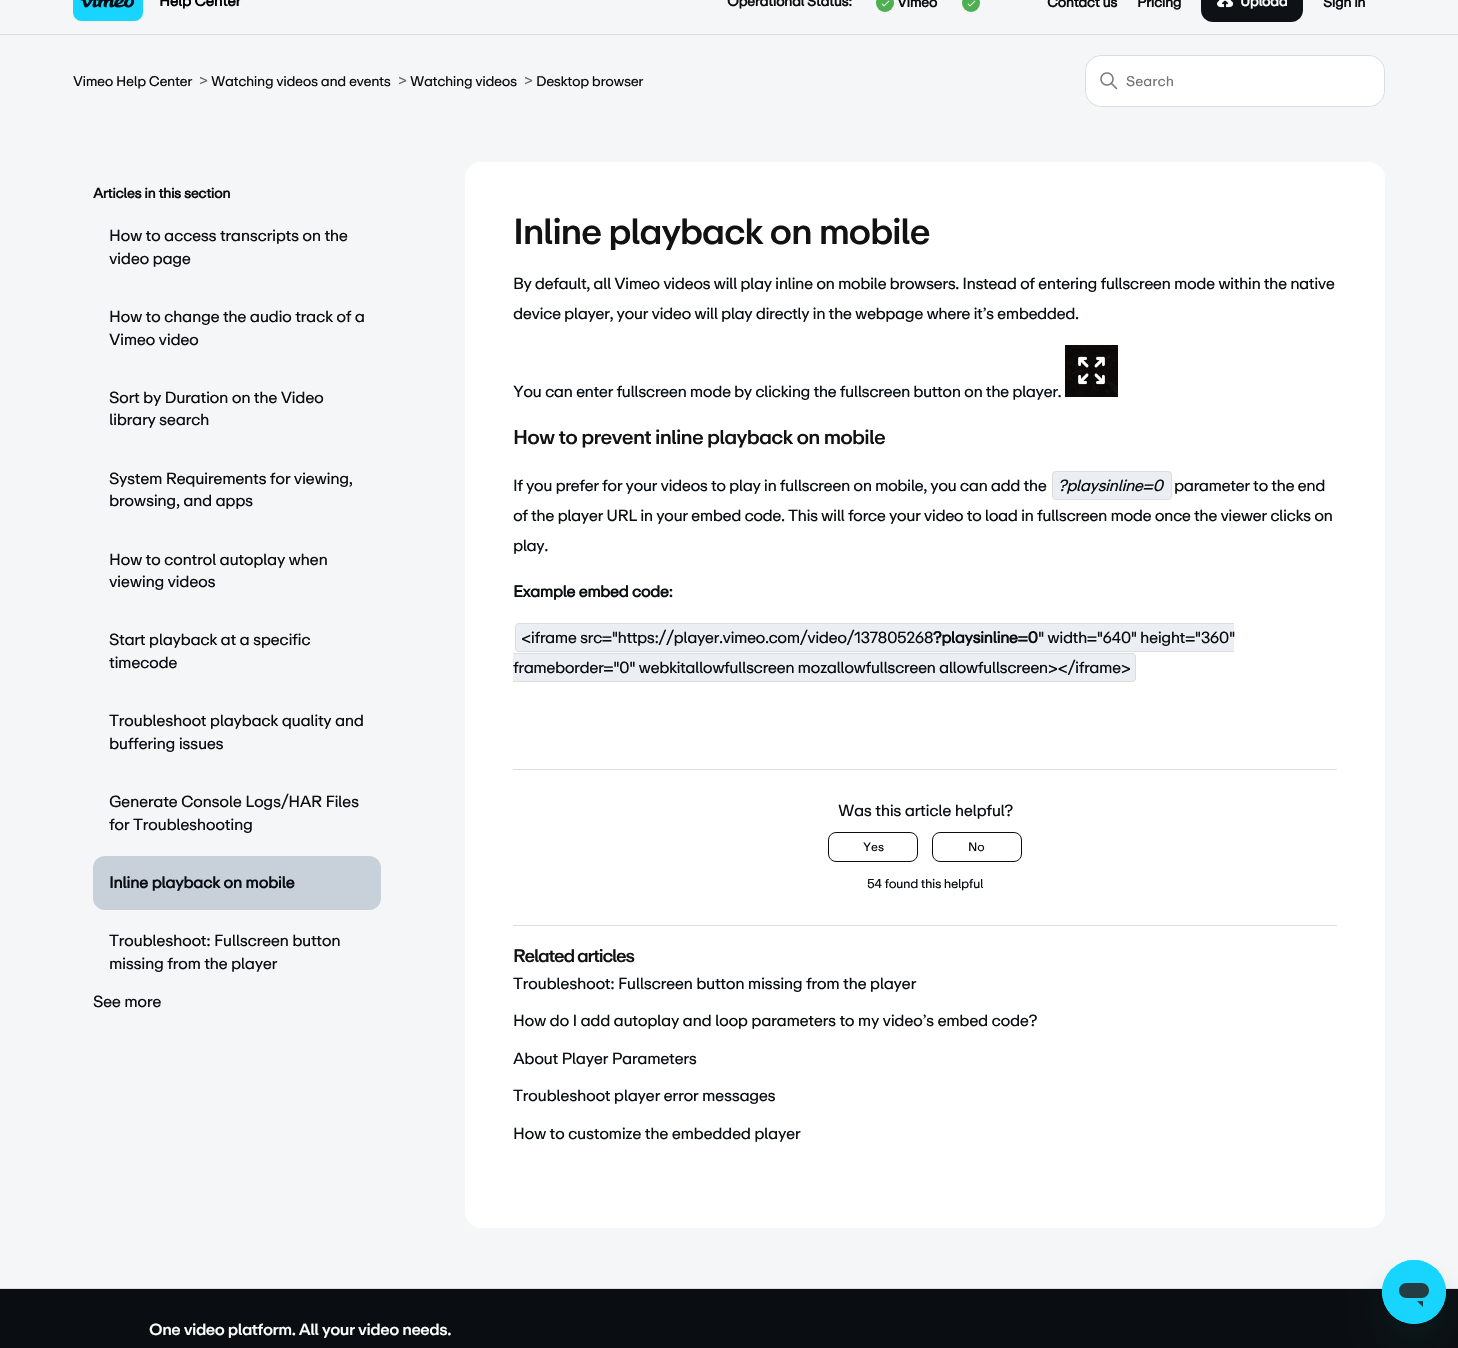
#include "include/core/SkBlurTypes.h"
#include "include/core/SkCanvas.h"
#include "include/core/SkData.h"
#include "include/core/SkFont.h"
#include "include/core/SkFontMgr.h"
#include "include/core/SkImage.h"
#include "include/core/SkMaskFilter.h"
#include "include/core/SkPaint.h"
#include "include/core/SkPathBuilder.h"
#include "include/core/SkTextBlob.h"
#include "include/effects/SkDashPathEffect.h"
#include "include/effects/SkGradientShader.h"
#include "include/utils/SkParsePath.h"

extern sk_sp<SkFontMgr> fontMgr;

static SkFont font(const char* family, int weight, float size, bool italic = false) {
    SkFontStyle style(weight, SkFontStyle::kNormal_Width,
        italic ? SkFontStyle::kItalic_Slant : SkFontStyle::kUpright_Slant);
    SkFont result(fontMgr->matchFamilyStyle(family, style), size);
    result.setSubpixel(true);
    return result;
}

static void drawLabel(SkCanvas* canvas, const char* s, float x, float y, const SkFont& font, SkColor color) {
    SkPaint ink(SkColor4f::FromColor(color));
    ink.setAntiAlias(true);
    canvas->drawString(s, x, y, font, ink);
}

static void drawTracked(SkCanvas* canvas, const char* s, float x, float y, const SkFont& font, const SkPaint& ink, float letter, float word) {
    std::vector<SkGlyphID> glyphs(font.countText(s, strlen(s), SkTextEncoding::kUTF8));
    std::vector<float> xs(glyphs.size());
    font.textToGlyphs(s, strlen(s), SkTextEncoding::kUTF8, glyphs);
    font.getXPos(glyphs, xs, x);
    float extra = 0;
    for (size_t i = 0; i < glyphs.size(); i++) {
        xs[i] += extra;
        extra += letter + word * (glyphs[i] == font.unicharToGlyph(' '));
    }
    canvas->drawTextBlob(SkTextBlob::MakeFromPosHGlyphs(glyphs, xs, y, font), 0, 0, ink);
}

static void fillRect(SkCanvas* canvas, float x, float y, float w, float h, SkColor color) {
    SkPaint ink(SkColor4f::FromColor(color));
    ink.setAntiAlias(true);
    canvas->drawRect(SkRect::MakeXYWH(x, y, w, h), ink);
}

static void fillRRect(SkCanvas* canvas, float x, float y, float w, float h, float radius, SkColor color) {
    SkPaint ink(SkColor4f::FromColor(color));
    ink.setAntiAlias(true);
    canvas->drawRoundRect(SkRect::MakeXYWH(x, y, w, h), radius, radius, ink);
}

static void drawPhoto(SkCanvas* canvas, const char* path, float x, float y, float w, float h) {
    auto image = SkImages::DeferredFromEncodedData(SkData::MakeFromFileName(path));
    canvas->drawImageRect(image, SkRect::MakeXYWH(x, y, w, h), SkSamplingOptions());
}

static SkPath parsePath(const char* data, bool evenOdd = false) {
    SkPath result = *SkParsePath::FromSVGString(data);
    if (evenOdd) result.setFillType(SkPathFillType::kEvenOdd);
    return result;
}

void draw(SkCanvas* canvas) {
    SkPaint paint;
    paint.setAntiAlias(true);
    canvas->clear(0xFFF4F6F8);
    drawPhoto(canvas, "assets/img1.png", 73, 0, 70, 21);
    SkFont font1 = font("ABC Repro", 700, 15);
    paint.setColor(0xFF000000);
    drawTracked(canvas, "Help Center", 159, 6, font1, paint, -0.42f, 0);
    SkFont font2 = font("ABC Repro", 700, 14);
    paint.setColor(0xFF0A0E12);
    drawTracked(canvas, "Operational Status:", 727, 6, font2, paint, -0.42f, 0);
    paint.setColor(0xFF4CAF50);
    canvas->drawCircle(885, 3, 9, paint);
    drawPhoto(canvas, "assets/img2.png", 881, 0, 9, 7);
    paint.setColor(0xFF0A0E12);
    drawTracked(canvas, "Vimeo", 897, 7, font2, paint, -0.42f, 0);
    paint.setColor(0xFF4CAF50);
    canvas->drawCircle(971, 3, 9, paint);
    drawPhoto(canvas, "assets/img2.png", 967, 0, 9, 7);
    paint.setColor(0xFF0A0E12);
    drawTracked(canvas, "Contact us", 1047, 7, font2, paint, -0.42f, 0);
    drawTracked(canvas, "Pricing", 1137, 7, font2, paint, -0.42f, 0);
    fillRRect(canvas, 1201, -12, 102, 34, 12, 0xFF0E1216);
    drawPhoto(canvas, "assets/img3.png", 1217, 0, 17, 8);
    paint.setColor(0xFFFFFFFF);
    drawTracked(canvas, "Upload", 1240, 6, font2, paint, -0.42f, 0);
    paint.setColor(0xFF0A0E12);
    drawTracked(canvas, "Sign in", 1323, 7, font2, paint, -0.42f, 0);
    fillRect(canvas, 0, 34, 1458, 1, 0xFFDDDDDD);
    SkFont font3 = font("ABC Repro", 400, 14);
    drawTracked(canvas, "Vimeo Help Center", 73, 86, font3, paint, -0.42f, 0);
    paint.setColor(0xFF626C76);
    drawTracked(canvas, ">", 199, 84, font3, paint, -0.42f, 0);
    paint.setColor(0xFF0A0E12);
    drawTracked(canvas, "Watching videos and events", 211, 86, font3, paint, -0.42f, 0);
    paint.setColor(0xFF626C76);
    drawTracked(canvas, ">", 398, 84, font3, paint, -0.42f, 0);
    paint.setColor(0xFF0A0E12);
    drawTracked(canvas, "Watching videos", 410, 86, font3, paint, -0.42f, 0);
    paint.setColor(0xFF626C76);
    drawTracked(canvas, ">", 524, 84, font3, paint, -0.42f, 0);
    paint.setColor(0xFF0A0E12);
    drawTracked(canvas, "Desktop browser", 536, 86, font3, paint, -0.42f, 0);
    paint.setStroke(true);
    paint.setStrokeWidth(1);
    paint.setColor(0xFFDDDDDD);
    canvas->drawRoundRect(SkRect::MakeXYWH(1085.5f, 55.5f, 299, 51), 15.5f, 15.5f, paint);
    fillRRect(canvas, 1086, 56, 298, 50, 16, 0xFFFFFFFF);
    drawPhoto(canvas, "assets/img4.png", 1100, 72, 18, 18);
    drawLabel(canvas, "Search", 1126, 86, font3, 0xFF757575);
    paint.setStroke(false);
    paint.setColor(0xFF0A0E12);
    drawTracked(canvas, "Articles in this section", 93, 198, font2, paint, -0.42f, 0);
    SkFont font4 = font("ABC Repro", 400, 16);
    drawTracked(canvas, "How to access transcripts on the", 109, 241, font4, paint, -0.42f, 0);
    drawTracked(canvas, "video page", 109, 264, font4, paint, -0.42f, 0);
    drawTracked(canvas, "How to change the audio track of a", 109, 322, font4, paint, -0.42f, 0);
    drawTracked(canvas, "Vimeo video", 109, 345, font4, paint, -0.42f, 0);
    drawTracked(canvas, "Sort by Duration on the Video", 109, 403, font4, paint, -0.42f, 0);
    drawTracked(canvas, "library search", 109, 425, font4, paint, -0.42f, 0);
    drawTracked(canvas, "System Requirements for viewing,", 109, 484, font4, paint, -0.42f, 0);
    drawTracked(canvas, "browsing, and apps", 109, 506, font4, paint, -0.42f, 0);
    drawTracked(canvas, "How to control autoplay when", 109, 565, font4, paint, -0.42f, 0);
    drawTracked(canvas, "viewing videos", 109, 587, font4, paint, -0.42f, 0);
    drawTracked(canvas, "Start playback at a specific", 109, 645, font4, paint, -0.42f, 0);
    drawTracked(canvas, "timecode", 109, 668, font4, paint, -0.42f, 0);
    drawTracked(canvas, "Troubleshoot playback quality and", 109, 726, font4, paint, -0.42f, 0);
    drawTracked(canvas, "buffering issues", 109, 749, font4, paint, -0.42f, 0);
    drawTracked(canvas, "Generate Console Logs/HAR Files", 109, 807, font4, paint, -0.42f, 0);
    drawTracked(canvas, "for Troubleshooting", 109, 830, font4, paint, -0.42f, 0);
    fillRRect(canvas, 93, 856, 288, 54, 12, 0xFFC8D0D9);
    SkFont font5 = font("ABC Repro", 700, 16);
    drawTracked(canvas, "Inline playback on mobile", 109, 888, font5, paint, -0.42f, 0);
    drawTracked(canvas, "Troubleshoot: Fullscreen button", 109, 946, font4, paint, -0.42f, 0);
    drawTracked(canvas, "missing from the player", 109, 969, font4, paint, -0.42f, 0);
    drawTracked(canvas, "See more", 93, 1007, font4, paint, -0.42f, 0);
    fillRRect(canvas, 465, 162, 920, 1066, 16, 0xFFFFFFFF);
    SkFont font6 = font("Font", 500, 36);
    paint.setColor(0xFF121212);
    drawTracked(canvas, "Inline playback on mobile", 513, 244, font6, paint, -1.4f, 0);
    paint.setColor(0xFF0A0E12);
    drawTracked(canvas, "By default, all Vimeo videos will play inline on mobile browsers. Instead of entering fullscreen mode within the native", 513, 289, font4, paint, -0.54f, 0);
    drawTracked(canvas, "device player, your video will play directly in the webpage where it’s embedded.", 513, 319, font4, paint, -0.54f, 0);
    drawTracked(canvas, "You can enter fullscreen mode by clicking the fullscreen button on the player.", 513, 397, font4, paint, -0.54f, 0);
    drawPhoto(canvas, "assets/img5.png", 1065, 345, 53, 52);
    SkFont font7 = font("Font", 500, 20);
    paint.setColor(0xFF121212);
    drawTracked(canvas, "How to prevent inline playback on mobile", 513, 444, font7, paint, -0.8f, 0);
    paint.setColor(0xFF0A0E12);
    drawTracked(canvas, "If you prefer for your videos to play in fullscreen on mobile, you can add the", 513, 491, font4, paint, -0.54f, 0);
    paint.setColor(0xFFEBEEF2);
    canvas->drawRoundRect(SkRect::MakeXYWH(1052.5f, 471.5f, 119, 28), 3.5f, 3.5f, paint);
    paint.setStroke(true);
    paint.setColor(0xFFDDDDDD);
    canvas->drawRoundRect(SkRect::MakeXYWH(1052.5f, 471.5f, 119, 28), 3.5f, 3.5f, paint);
    SkFont font8 = font("ABC Repro", 400, 16, true);
    paint.setStroke(false);
    paint.setColor(0xFF0A0E12);
    drawTracked(canvas, "?playsinline=0", 1058, 491, font8, paint, -0.54f, 0);
    drawTracked(canvas, "parameter to the end", 1174, 491, font4, paint, -0.54f, 0);
    drawTracked(canvas, "of the player URL in your embed code. This will force your video to load in fullscreen mode once the viewer clicks on", 513, 521, font4, paint, -0.54f, 0);
    drawTracked(canvas, "play.", 513, 551, font4, paint, -0.54f, 0);
    drawTracked(canvas, "Example embed code:", 513, 597, font5, paint, -0.54f, 0);
    paint.setColor(0xFFEBEEF2);
    canvas->drawPath(parsePath("M519 623H933V652H519C517 652 515 650 515 648V627C515 625 517 623 519 623Z"), paint);
    paint.setColor(0xFFDDDDDD);
    canvas->drawPath(parsePath("M519 623H933V652H519C517 652 515 650 515 648V627C515 625 517 623 519 623ZM519 624H933V651H519C517 651 516 650 516 648V627C516 625 517 624 519 624Z", true), paint);
    paint.setColor(0xFF0A0E12);
    drawTracked(canvas, "<iframe src=\"https://player.vimeo.com/video/137805268", 521, 643, font4, paint, -0.54f, 0);
    fillRect(canvas, 933, 624, 301, 27, 0xFFEBEEF2);
    fillRect(canvas, 933, 623, 301, 1, 0xFFDDDDDD);
    drawTracked(canvas, "?playsinline=0", 933, 643, font5, paint, -0.54f, 0);
    fillRect(canvas, 933, 651, 301, 1, 0xFFDDDDDD);
    drawTracked(canvas, "\" width=\"640\" height=\"360\"", 1038, 643, font4, paint, -0.54f, 0);
    paint.setColor(0xFFEBEEF2);
    canvas->drawPath(parsePath("M513 653H1132C1134 653 1136 655 1136 657V678C1136 680 1134 682 1132 682H513Z"), paint);
    paint.setColor(0xFFDDDDDD);
    canvas->drawPath(parsePath("M513 653H1132C1134 653 1136 655 1136 657V678C1136 680 1134 682 1132 682H513ZM513 654H1132C1134 654 1135 655 1135 657V678C1135 680 1134 681 1132 681H513Z", true), paint);
    paint.setColor(0xFF0A0E12);
    drawTracked(canvas, "frameborder=\"0\" webkitallowfullscreen mozallowfullscreen allowfullscreen></iframe>", 513, 673, font4, paint, -0.54f, 0);
    fillRect(canvas, 513, 769, 824, 1, 0xFFDDDDDD);
    drawTracked(canvas, "Was this article helpful?", 838, 816, font4, paint, -0.42f, 0);
    paint.setStroke(true);
    canvas->drawRoundRect(SkRect::MakeXYWH(828.5f, 832.5f, 89, 29), 7.5f, 7.5f, paint);
    SkFont font9 = font("ABC Repro", 400, 12);
    drawLabel(canvas, "Yes", 863, 851, font9, 0xFF0A0E12);
    canvas->drawRoundRect(SkRect::MakeXYWH(932.5f, 832.5f, 89, 29), 7.5f, 7.5f, paint);
    drawLabel(canvas, "No", 968, 851, font9, 0xFF0A0E12);
    SkFont font10 = font("ABC Repro", 400, 12.75f);
    paint.setStroke(false);
    drawTracked(canvas, "54 found this helpful", 867, 888, font10, paint, -0.42f, 0);
    fillRect(canvas, 513, 925, 824, 1, 0xFFDDDDDD);
    SkFont font11 = font("Font", 500, 18);
    paint.setColor(0xFF121212);
    drawTracked(canvas, "Related articles", 513, 962, font11, paint, -1.25f, 0);
    paint.setColor(0xFF0A0E12);
    drawTracked(canvas, "Troubleshoot: Fullscreen button missing from the player", 513, 989, font4, paint, -0.42f, 0);
    drawTracked(canvas, "How do I add autoplay and loop parameters to my video’s embed code?", 513, 1026, font4, paint, -0.42f, 0);
    drawTracked(canvas, "About Player Parameters", 513, 1064, font4, paint, -0.42f, 0);
    drawTracked(canvas, "Troubleshoot player error messages", 513, 1101, font4, paint, -0.42f, 0);
    drawTracked(canvas, "How to customize the embedded player", 513, 1139, font4, paint, -0.42f, 0);
    fillRect(canvas, 0, 1289, 1458, 59, 0xFF0A0E12);
    fillRect(canvas, 0, 1288, 1458, 1, 0xFFDDDDDD);
    SkFont font12 = font("Font", 500, 16);
    paint.setColor(0xFFFFFFFF);
    drawTracked(canvas, "One video platform. All your video needs.", 149, 1335, font12, paint, -0.5f, 0);
    paint.setColor(0x2617494D);
    paint.setMaskFilter(SkMaskFilter::MakeBlur(kNormal_SkBlurStyle, 15));
    canvas->drawRoundRect(SkRect::MakeXYWH(1382, 1280, 64, 64), 32, 32, paint);
    paint.setMaskFilter(nullptr);
    drawPhoto(canvas, "assets/img6.png", 1382, 1260, 64, 64);
}
